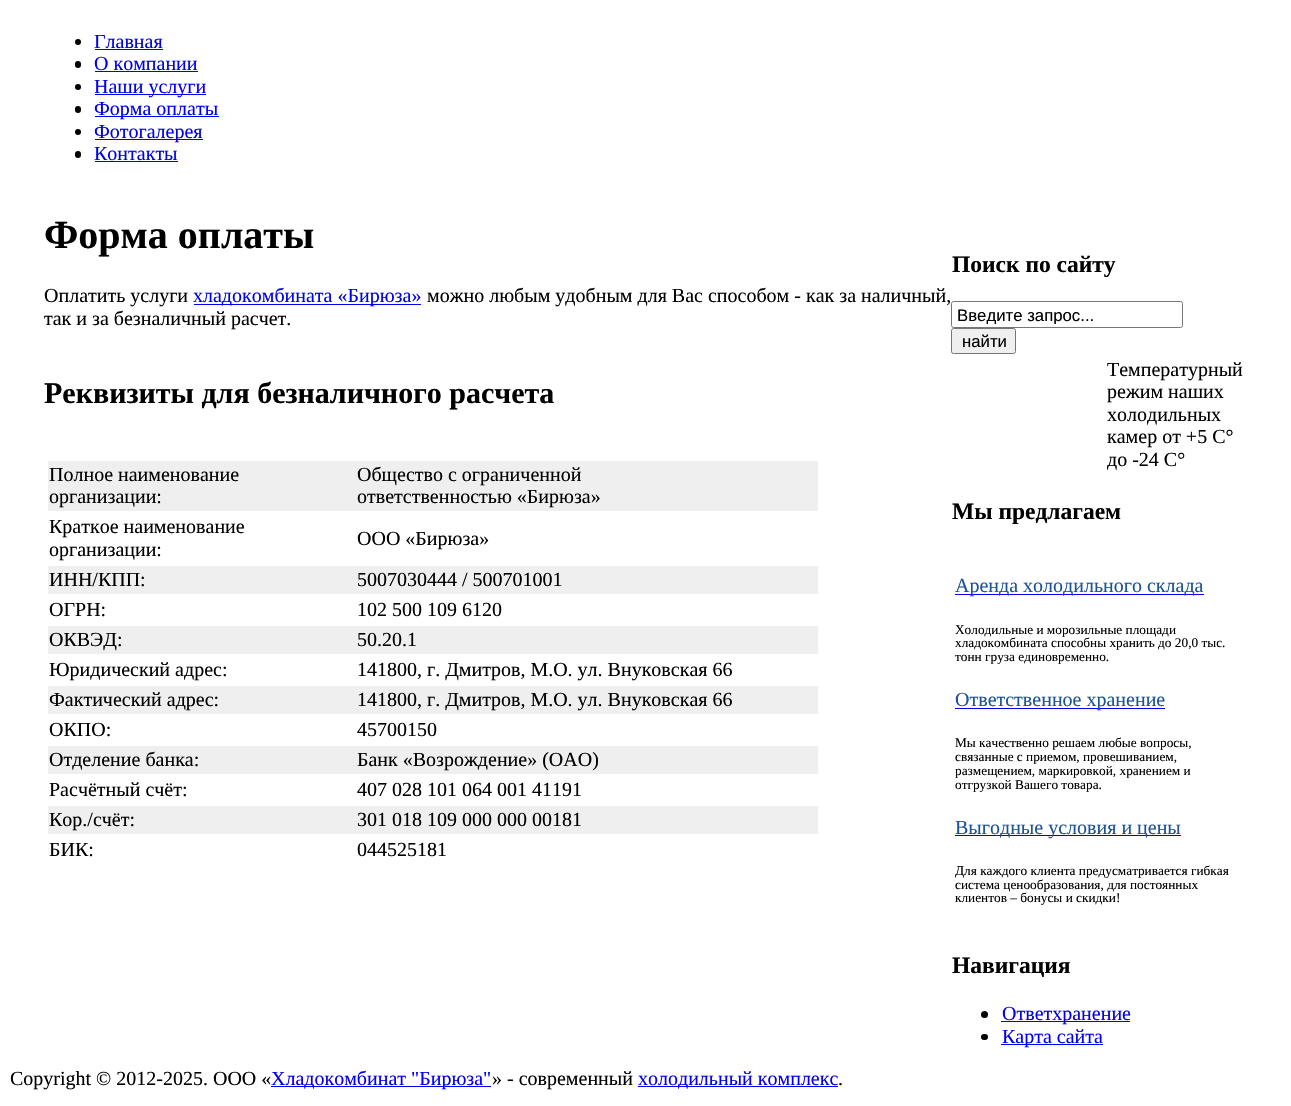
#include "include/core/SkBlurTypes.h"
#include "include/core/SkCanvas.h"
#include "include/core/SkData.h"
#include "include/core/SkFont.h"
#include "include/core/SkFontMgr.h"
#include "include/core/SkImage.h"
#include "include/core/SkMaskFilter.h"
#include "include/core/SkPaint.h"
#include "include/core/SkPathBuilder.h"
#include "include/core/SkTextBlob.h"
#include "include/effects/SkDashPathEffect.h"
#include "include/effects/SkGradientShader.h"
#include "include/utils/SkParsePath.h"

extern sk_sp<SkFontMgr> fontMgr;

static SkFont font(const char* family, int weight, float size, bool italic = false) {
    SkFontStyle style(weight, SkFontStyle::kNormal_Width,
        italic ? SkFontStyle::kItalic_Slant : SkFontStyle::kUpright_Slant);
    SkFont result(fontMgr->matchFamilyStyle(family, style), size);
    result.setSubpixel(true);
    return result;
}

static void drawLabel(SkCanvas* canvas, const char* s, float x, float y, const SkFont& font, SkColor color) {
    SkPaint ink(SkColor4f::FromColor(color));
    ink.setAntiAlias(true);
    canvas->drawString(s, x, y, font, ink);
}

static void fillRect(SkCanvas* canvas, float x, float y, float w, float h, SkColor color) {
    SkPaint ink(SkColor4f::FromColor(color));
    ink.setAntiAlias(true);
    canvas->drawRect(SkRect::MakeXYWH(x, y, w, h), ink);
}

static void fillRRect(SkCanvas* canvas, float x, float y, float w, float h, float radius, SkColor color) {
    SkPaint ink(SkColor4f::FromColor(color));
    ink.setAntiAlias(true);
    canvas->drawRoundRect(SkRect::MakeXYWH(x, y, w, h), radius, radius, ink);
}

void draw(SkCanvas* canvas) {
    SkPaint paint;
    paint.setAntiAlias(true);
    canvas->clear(0xFFFFFFFF);
    paint.setColor(0xFF000000);
    canvas->drawCircle(78, 42, 3, paint);
    SkFont font1 = font("Liberation Serif", 400, 20);
    drawLabel(canvas, "Главная", 94, 48, font1, 0xFF0000EE);
    fillRect(canvas, 95, 49, 68, 1, 0xFF0000EE);
    fillRRect(canvas, 75, 61, 6, 7, 3, 0xFF000000);
    drawLabel(canvas, "О компании", 94, 70, font1, 0xFF0000EE);
    fillRect(canvas, 95, 71, 103, 1, 0xFF0000EE);
    canvas->drawCircle(78, 87, 3, paint);
    fillRect(canvas, 95, 94, 111, 1, 0xFF0000EE);
    drawLabel(canvas, "Наши услуги", 94, 93, font1, 0xFF0000EE);
    fillRRect(canvas, 75, 106, 6, 7, 3, 0xFF000000);
    fillRect(canvas, 95, 116, 124, 1, 0xFF0000EE);
    drawLabel(canvas, "Форма оплаты", 94, 115, font1, 0xFF0000EE);
    canvas->drawCircle(78, 132, 3, paint);
    fillRect(canvas, 95, 139, 108, 1, 0xFF0000EE);
    drawLabel(canvas, "Фотогалерея", 94, 138, font1, 0xFF0000EE);
    fillRRect(canvas, 75, 151, 6, 7, 3, 0xFF000000);
    drawLabel(canvas, "Контакты", 94, 160, font1, 0xFF0000EE);
    fillRect(canvas, 95, 161, 83, 1, 0xFF0000EE);
    SkFont font2 = font("Liberation Serif", 700, 40);
    drawLabel(canvas, "Форма оплаты", 44, 248, font2, 0xFF000000);
    drawLabel(canvas, "Оплатить услуги", 44, 302, font1, 0xFF000000);
    fillRect(canvas, 194, 304, 227, 1, 0xFF0000EE);
    drawLabel(canvas, "хладокомбината «Бирюза»", 193, 302, font1, 0xFF0000EE);
    drawLabel(canvas, "можно любым удобным для Вас способом - как за наличный,", 427, 302, font1, 0xFF000000);
    drawLabel(canvas, "так и за безналичный расчет.", 44, 325, font1, 0xFF000000);
    SkFont font3 = font("Liberation Serif", 700, 30);
    drawLabel(canvas, "Реквизиты для безналичного расчета", 44, 403, font3, 0xFF000000);
    fillRect(canvas, 48, 461, 770, 50, 0xFFEFEFEF);
    drawLabel(canvas, "Полное наименование", 49, 481, font1, 0xFF000000);
    drawLabel(canvas, "организации:", 49, 503, font1, 0xFF000000);
    drawLabel(canvas, "Общество с ограниченной", 357, 481, font1, 0xFF000000);
    drawLabel(canvas, "ответственностью «Бирюза»", 357, 503, font1, 0xFF000000);
    drawLabel(canvas, "Краткое наименование", 49, 533, font1, 0xFF000000);
    drawLabel(canvas, "организации:", 49, 556, font1, 0xFF000000);
    drawLabel(canvas, "ООО «Бирюза»", 357, 545, font1, 0xFF000000);
    fillRect(canvas, 48, 566, 770, 28, 0xFFEFEFEF);
    drawLabel(canvas, "ИНН/КПП:", 49, 586, font1, 0xFF000000);
    drawLabel(canvas, "5007030444 / 500701001", 357, 586, font1, 0xFF000000);
    drawLabel(canvas, "ОГРН:", 49, 616, font1, 0xFF000000);
    drawLabel(canvas, "102 500 109 6120", 357, 616, font1, 0xFF000000);
    fillRect(canvas, 48, 626, 770, 28, 0xFFEFEFEF);
    drawLabel(canvas, "ОКВЭД:", 49, 646, font1, 0xFF000000);
    drawLabel(canvas, "50.20.1", 357, 646, font1, 0xFF000000);
    drawLabel(canvas, "Юридический адрес:", 49, 676, font1, 0xFF000000);
    drawLabel(canvas, "141800, г. Дмитров, М.О. ул. Внуковская 66", 357, 676, font1, 0xFF000000);
    fillRect(canvas, 48, 686, 770, 28, 0xFFEFEFEF);
    drawLabel(canvas, "Фактический адрес:", 49, 706, font1, 0xFF000000);
    drawLabel(canvas, "141800, г. Дмитров, М.О. ул. Внуковская 66", 357, 706, font1, 0xFF000000);
    drawLabel(canvas, "ОКПО:", 49, 736, font1, 0xFF000000);
    drawLabel(canvas, "45700150", 357, 736, font1, 0xFF000000);
    fillRect(canvas, 48, 746, 770, 28, 0xFFEFEFEF);
    drawLabel(canvas, "Отделение банка:", 49, 766, font1, 0xFF000000);
    drawLabel(canvas, "Банк «Возрождение» (ОАО)", 357, 766, font1, 0xFF000000);
    drawLabel(canvas, "Расчётный счёт:", 49, 796, font1, 0xFF000000);
    drawLabel(canvas, "407 028 101 064 001 41191", 357, 796, font1, 0xFF000000);
    fillRect(canvas, 48, 806, 770, 28, 0xFFEFEFEF);
    drawLabel(canvas, "Кор./счёт:", 49, 826, font1, 0xFF000000);
    drawLabel(canvas, "301 018 109 000 000 00181", 357, 826, font1, 0xFF000000);
    drawLabel(canvas, "БИК:", 49, 856, font1, 0xFF000000);
    drawLabel(canvas, "044525181", 357, 856, font1, 0xFF000000);
    SkFont font4 = font("Liberation Serif", 700, 23.5f);
    drawLabel(canvas, "Поиск по сайту", 952, 272, font4, 0xFF000000);
    paint.setStroke(true);
    paint.setStrokeWidth(1);
    paint.setColor(0xFF767676);
    canvas->drawRoundRect(SkRect::MakeXYWH(951.5f, 301.5f, 231, 26), 2, 2, paint);
    canvas->save();
    canvas->clipRect(SkRect::MakeXYWH(956, 305, 222, 19));
    SkFont font5 = font("Liberation Sans", 400, 16.75f);
    drawLabel(canvas, "Введите запрос...", 957, 321, font5, 0xFF000000);
    canvas->restore();
    paint.setStroke(false);
    paint.setColor(0xFFEFEFEF);
    canvas->drawRoundRect(SkRect::MakeXYWH(951.5f, 328.5f, 64, 25), 2, 2, paint);
    paint.setStroke(true);
    paint.setColor(0xFF767676);
    canvas->drawRoundRect(SkRect::MakeXYWH(951.5f, 328.5f, 64, 25), 2, 2, paint);
    drawLabel(canvas, "найти", 962, 347, font5, 0xFF000000);
    drawLabel(canvas, "Температурный", 1107, 376, font1, 0xFF000000);
    drawLabel(canvas, "режим наших", 1107, 398, font1, 0xFF000000);
    drawLabel(canvas, "холодильных", 1107, 421, font1, 0xFF000000);
    drawLabel(canvas, "камер от +5 С°", 1107, 443, font1, 0xFF000000);
    drawLabel(canvas, "до -24 С°", 1107, 466, font1, 0xFF000000);
    drawLabel(canvas, "Мы предлагаем", 952, 519, font4, 0xFF000000);
    fillRect(canvas, 955, 594, 249, 1, 0xFF0000EE);
    drawLabel(canvas, "Аренда холодильного склада", 955, 592, font1, 0xFF1B5394);
    SkFont font6 = font("Liberation Serif", 400, 13.3f);
    drawLabel(canvas, "Холодильные и морозильные площади", 955, 634, font6, 0xFF000000);
    drawLabel(canvas, "хладокомбината способны хранить до 20,0 тыс.", 955, 647, font6, 0xFF000000);
    drawLabel(canvas, "тонн груза единовременно.", 955, 661, font6, 0xFF000000);
    fillRect(canvas, 955, 708, 210, 1, 0xFF0000EE);
    drawLabel(canvas, "Ответственное хранение", 955, 706, font1, 0xFF1B5394);
    drawLabel(canvas, "Мы качественно решаем любые вопросы,", 955, 747, font6, 0xFF000000);
    drawLabel(canvas, "связанные с приемом, провешиванием,", 955, 761, font6, 0xFF000000);
    drawLabel(canvas, "размещением, маркировкой, хранением и", 955, 775, font6, 0xFF000000);
    drawLabel(canvas, "отгрузкой Вашего товара.", 955, 789, font6, 0xFF000000);
    fillRect(canvas, 955, 835, 226, 1, 0xFF0000EE);
    drawLabel(canvas, "Выгодные условия и цены", 955, 834, font1, 0xFF1B5394);
    drawLabel(canvas, "Для каждого клиента предусматривается гибкая", 955, 875, font6, 0xFF000000);
    drawLabel(canvas, "система ценообразования, для постоянных", 955, 889, font6, 0xFF000000);
    drawLabel(canvas, "клиентов – бонусы и скидки!", 955, 902, font6, 0xFF000000);
    drawLabel(canvas, "Навигация", 952, 973, font4, 0xFF000000);
    paint.setStroke(false);
    paint.setColor(0xFF000000);
    canvas->drawCircle(984.5f, 1014.5f, 3.5f, paint);
    fillRect(canvas, 1001, 1021, 129, 1, 0xFF0000EE);
    drawLabel(canvas, "Ответхранение", 1002, 1020, font1, 0xFF0000EE);
    fillRRect(canvas, 981, 1034, 7, 6, 3, 0xFF000000);
    fillRect(canvas, 1001, 1044, 102, 1, 0xFF0000EE);
    drawLabel(canvas, "Карта сайта", 1002, 1043, font1, 0xFF0000EE);
    drawLabel(canvas, "Copyright © 2012-2025. ООО «", 10, 1085, font1, 0xFF000000);
    fillRect(canvas, 271, 1086, 220, 1, 0xFF0000EE);
    drawLabel(canvas, "Хладокомбинат \"Бирюза\"", 271, 1085, font1, 0xFF0000EE);
    drawLabel(canvas, "» - современный", 492, 1085, font1, 0xFF000000);
    fillRect(canvas, 638, 1086, 200, 1, 0xFF0000EE);
    drawLabel(canvas, "холодильный комплекс", 638, 1085, font1, 0xFF0000EE);
    drawLabel(canvas, ".", 838, 1085, font1, 0xFF000000);
}
